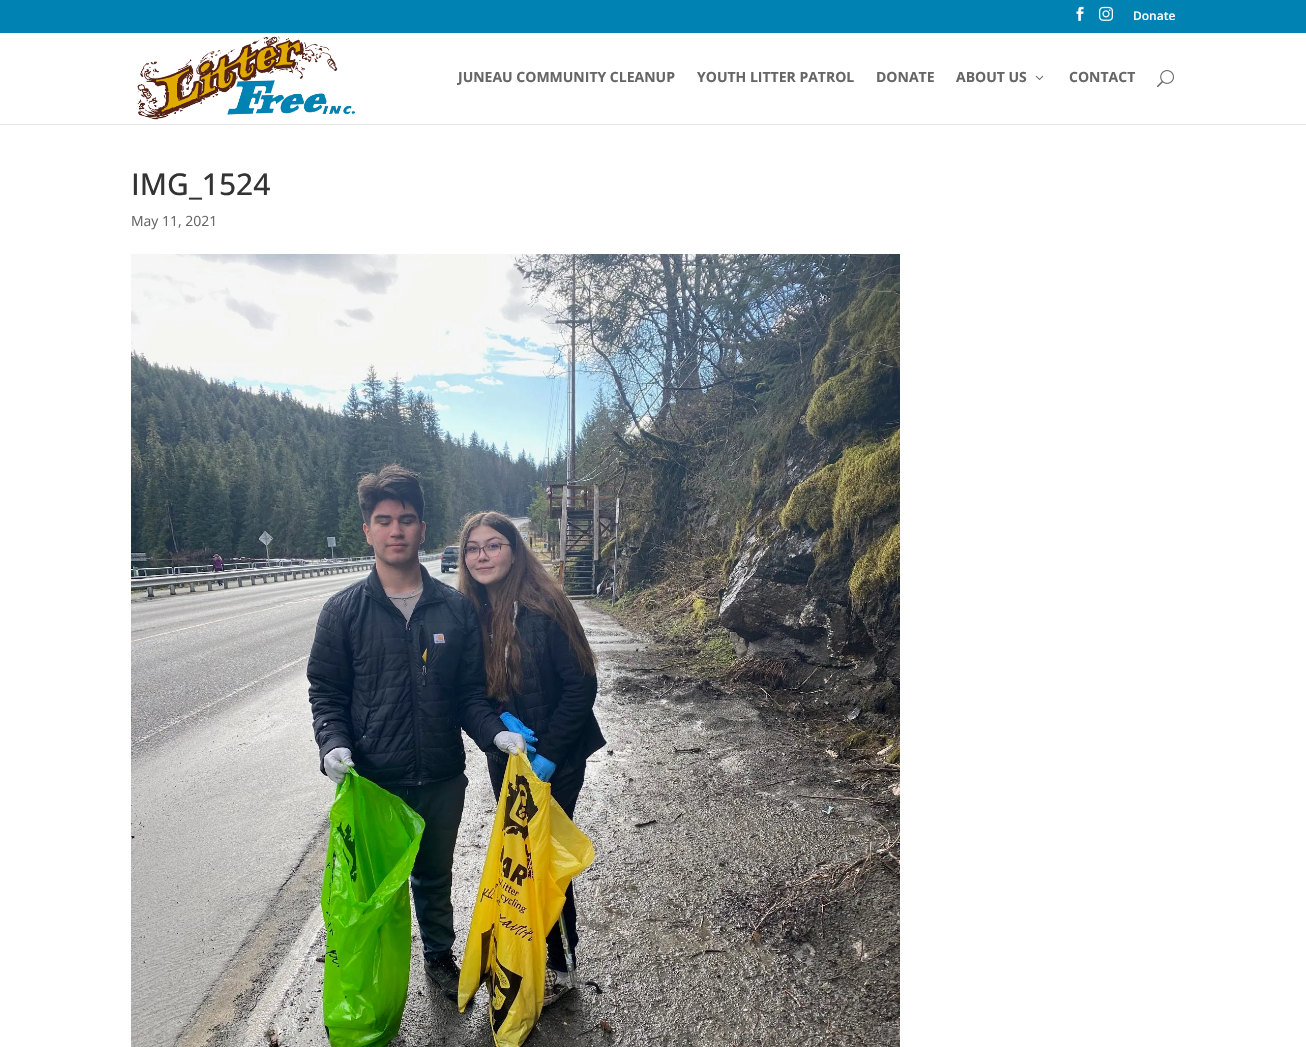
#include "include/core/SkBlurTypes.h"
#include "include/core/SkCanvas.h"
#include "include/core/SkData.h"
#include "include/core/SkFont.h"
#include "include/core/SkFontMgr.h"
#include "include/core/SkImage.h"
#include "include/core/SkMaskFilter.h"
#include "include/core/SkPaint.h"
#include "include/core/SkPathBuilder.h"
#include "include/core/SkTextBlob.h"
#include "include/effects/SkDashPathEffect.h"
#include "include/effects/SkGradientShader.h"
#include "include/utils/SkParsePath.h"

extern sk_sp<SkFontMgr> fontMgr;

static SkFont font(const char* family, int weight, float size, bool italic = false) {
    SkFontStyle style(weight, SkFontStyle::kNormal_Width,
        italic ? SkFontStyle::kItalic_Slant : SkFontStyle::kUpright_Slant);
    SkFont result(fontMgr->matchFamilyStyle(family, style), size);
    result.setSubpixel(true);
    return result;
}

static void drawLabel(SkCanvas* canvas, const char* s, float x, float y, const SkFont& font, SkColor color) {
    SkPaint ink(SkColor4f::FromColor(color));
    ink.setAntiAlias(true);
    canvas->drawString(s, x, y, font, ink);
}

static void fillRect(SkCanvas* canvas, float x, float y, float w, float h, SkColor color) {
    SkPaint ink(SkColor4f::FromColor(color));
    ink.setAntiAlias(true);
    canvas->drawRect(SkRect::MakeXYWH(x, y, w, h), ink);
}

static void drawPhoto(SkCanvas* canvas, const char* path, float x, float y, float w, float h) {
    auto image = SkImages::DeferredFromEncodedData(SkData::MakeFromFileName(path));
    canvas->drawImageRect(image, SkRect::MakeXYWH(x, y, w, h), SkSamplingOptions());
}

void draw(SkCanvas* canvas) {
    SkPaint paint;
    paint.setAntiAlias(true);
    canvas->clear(0xFFFFFFFF);
    fillRect(canvas, 0, 0, 1306, 33, 0xFF0082B2);
    drawPhoto(canvas, "assets/img1.png", 1076, 6, 8, 15);
    drawPhoto(canvas, "assets/img2.png", 1099, 6, 14, 15);
    SkFont font1 = font("Open Sans", 600, 12);
    drawLabel(canvas, "Donate", 1133, 20, font1, 0xFFFFFFFF);
    fillRect(canvas, 0, 124, 1306, 1, 0xFFE6E6E6);
    drawPhoto(canvas, "assets/img3.png", 137, 36, 219, 84);
    SkFont font2 = font("Open Sans", 700, 14);
    drawLabel(canvas, "JUNEAU COMMUNITY CLEANUP", 458, 82, font2, 0xFF666666);
    drawLabel(canvas, "YOUTH LITTER PATROL", 697, 82, font2, 0xFF666666);
    drawLabel(canvas, "DONATE", 876, 82, font2, 0xFF666666);
    drawLabel(canvas, "ABOUT US", 956, 82, font2, 0xFF666666);
    drawPhoto(canvas, "assets/img4.png", 1035, 75, 9, 5);
    drawLabel(canvas, "CONTACT", 1069, 82, font2, 0xFF666666);
    drawPhoto(canvas, "assets/img5.png", 1157, 70, 17, 18);
    SkFont font3 = font("Open Sans", 500, 30);
    drawLabel(canvas, "IMG_1524", 131, 195, font3, 0xFF333333);
    SkFont font4 = font("Open Sans", 400, 14);
    drawLabel(canvas, "May 11, 2021", 131, 226, font4, 0xFF666666);
    drawPhoto(canvas, "assets/img6.png", 131, 254, 769, 793);
}
